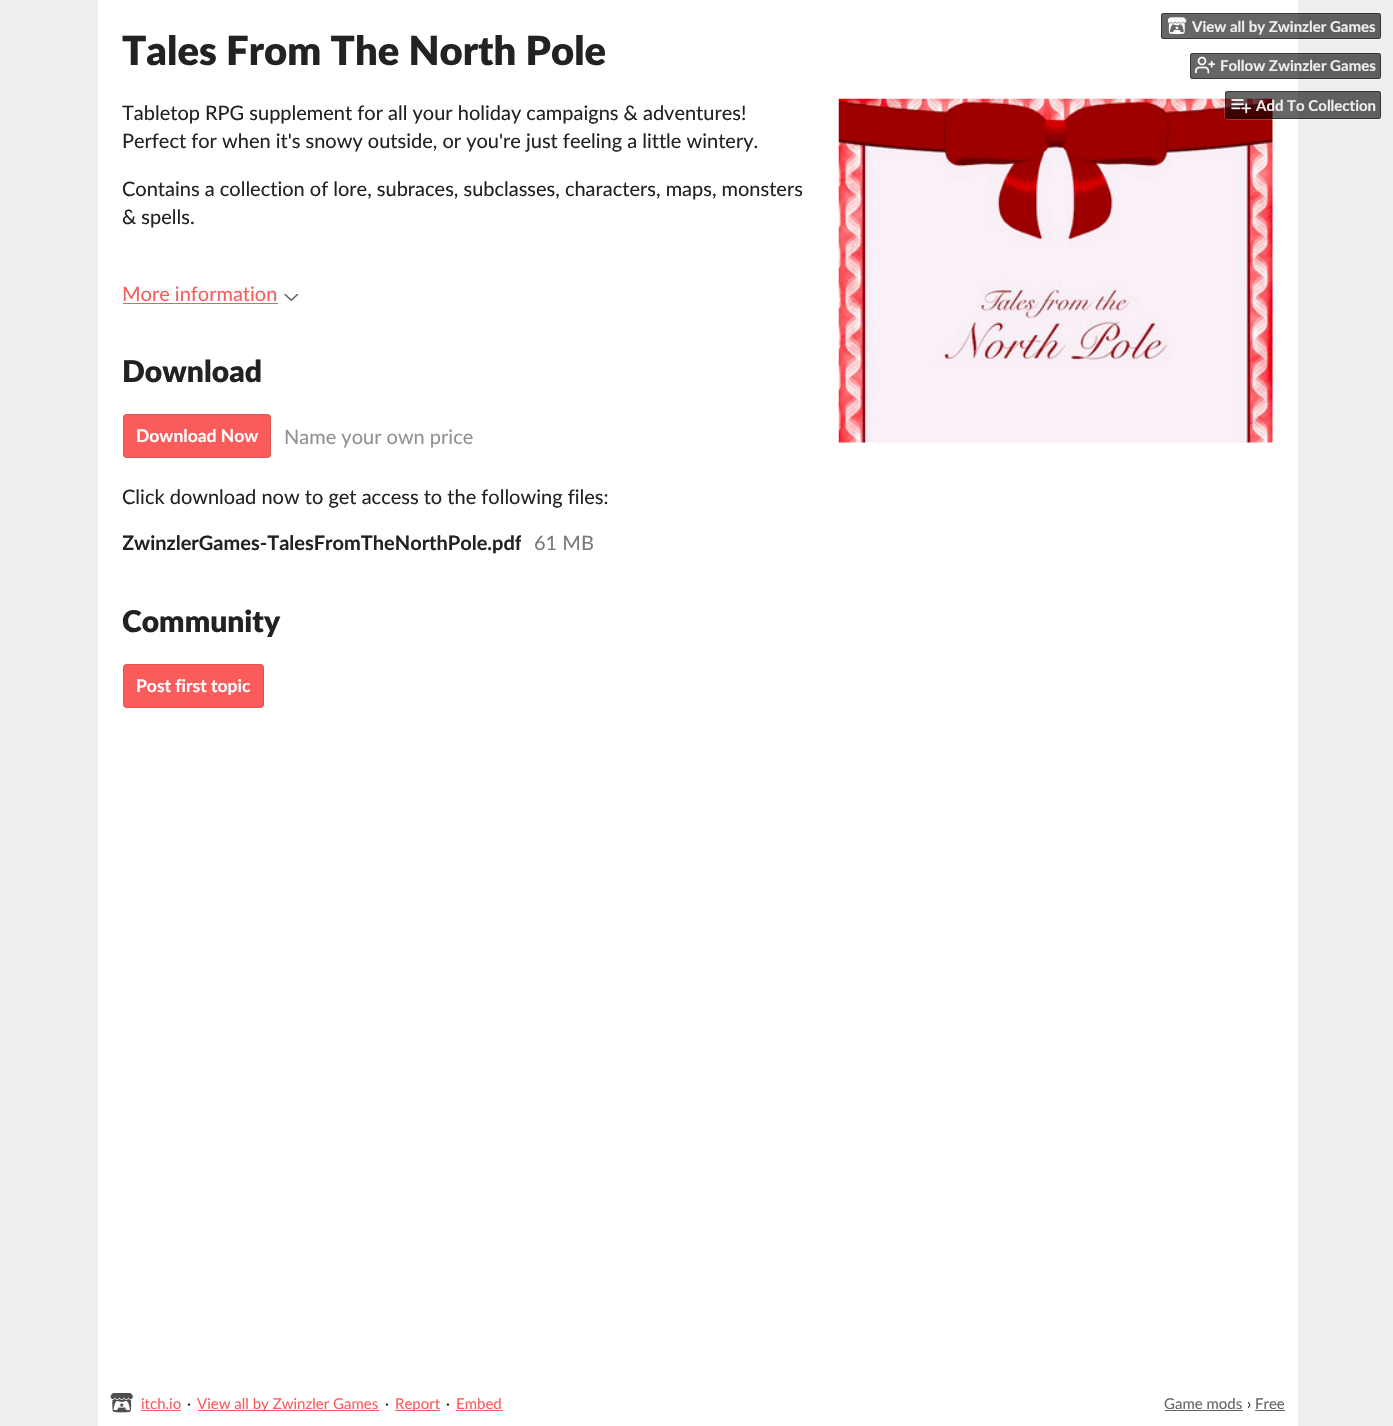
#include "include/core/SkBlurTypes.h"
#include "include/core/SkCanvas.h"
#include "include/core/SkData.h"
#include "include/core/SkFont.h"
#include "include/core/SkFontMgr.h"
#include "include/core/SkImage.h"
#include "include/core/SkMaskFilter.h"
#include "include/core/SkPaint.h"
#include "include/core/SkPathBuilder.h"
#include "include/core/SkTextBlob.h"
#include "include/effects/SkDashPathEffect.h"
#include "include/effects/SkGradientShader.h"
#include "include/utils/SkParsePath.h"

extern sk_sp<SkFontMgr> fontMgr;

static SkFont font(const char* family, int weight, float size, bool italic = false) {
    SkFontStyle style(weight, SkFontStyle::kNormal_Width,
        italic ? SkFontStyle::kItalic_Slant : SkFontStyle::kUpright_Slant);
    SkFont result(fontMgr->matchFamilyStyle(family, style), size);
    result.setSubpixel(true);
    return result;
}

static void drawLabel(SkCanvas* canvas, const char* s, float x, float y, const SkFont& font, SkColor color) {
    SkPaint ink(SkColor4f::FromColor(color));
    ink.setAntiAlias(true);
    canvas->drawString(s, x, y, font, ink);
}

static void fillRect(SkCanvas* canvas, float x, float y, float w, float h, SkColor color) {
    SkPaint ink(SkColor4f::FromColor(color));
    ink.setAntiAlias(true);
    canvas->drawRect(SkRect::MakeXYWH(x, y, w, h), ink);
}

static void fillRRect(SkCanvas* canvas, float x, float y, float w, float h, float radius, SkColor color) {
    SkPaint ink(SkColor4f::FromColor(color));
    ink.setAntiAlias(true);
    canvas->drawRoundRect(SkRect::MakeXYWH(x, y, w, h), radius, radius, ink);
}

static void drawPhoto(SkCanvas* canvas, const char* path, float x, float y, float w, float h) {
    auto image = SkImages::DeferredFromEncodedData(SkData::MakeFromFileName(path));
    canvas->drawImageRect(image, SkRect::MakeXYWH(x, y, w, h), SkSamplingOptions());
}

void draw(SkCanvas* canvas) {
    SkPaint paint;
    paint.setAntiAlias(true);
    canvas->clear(0xFFEEEEEE);
    fillRect(canvas, 98, 0, 1200, 1426, 0xFFFFFFFF);
    paint.setStroke(true);
    paint.setStrokeWidth(1);
    paint.setColor(0x33FFFFFF);
    canvas->drawRoundRect(SkRect::MakeXYWH(1160.5f, 11.5f, 222, 28), 3.5f, 3.5f, paint);
    fillRRect(canvas, 1161, 13, 220, 26, 2.5f, 0x99000000);
    paint.setColor(0x800A0A0A);
    canvas->drawRoundRect(SkRect::MakeXYWH(1161.5f, 13.5f, 219, 25), 2, 2, paint);
    drawPhoto(canvas, "assets/img1.png", 1168, 17, 19, 18);
    SkFont font1 = font("Lato", 700, 15);
    drawLabel(canvas, "View all by Zwinzler Games", 1192, 32, font1, 0xFFEEEEEE);
    paint.setColor(0x33FFFFFF);
    canvas->drawRoundRect(SkRect::MakeXYWH(1189.5f, 51.5f, 193, 28), 3.5f, 3.5f, paint);
    fillRRect(canvas, 1190, 53, 191, 26, 2.5f, 0x99000000);
    paint.setColor(0x800A0A0A);
    canvas->drawRoundRect(SkRect::MakeXYWH(1190.5f, 53.5f, 190, 25), 2, 2, paint);
    drawPhoto(canvas, "assets/img2.png", 1195, 56, 20, 18);
    drawLabel(canvas, "Follow Zwinzler Games", 1220, 71, font1, 0xFFEEEEEE);
    drawPhoto(canvas, "assets/img5.png", 838, 98, 435, 345);
    paint.setColor(0x33FFFFFF);
    canvas->drawRoundRect(SkRect::MakeXYWH(1224.5f, 90.5f, 158, 29), 3.5f, 3.5f, paint);
    fillRRect(canvas, 1225, 91, 156, 28, 2.5f, 0x99000000);
    paint.setColor(0x800A0A0A);
    canvas->drawRoundRect(SkRect::MakeXYWH(1225.5f, 91.5f, 155, 27), 2, 2, paint);
    drawPhoto(canvas, "assets/img3.png", 1231, 99, 20, 15);
    drawLabel(canvas, "Add To Collection", 1256, 111, font1, 0xFFEEEEEE);
    SkFont font2 = font("Lato", 900, 40);
    drawLabel(canvas, "Tales From The North Pole", 122, 65, font2, 0xFF222222);
    SkFont font3 = font("Lato", 400, 20);
    drawLabel(canvas, "Tabletop RPG supplement for all your holiday campaigns & adventures!", 122, 120, font3, 0xFF222222);
    drawLabel(canvas, "Perfect for when it's snowy outside, or you're just feeling a little wintery.", 122, 148, font3, 0xFF222222);
    drawLabel(canvas, "Contains a collection of lore, subraces, subclasses, characters, maps, monsters", 122, 196, font3, 0xFF222222);
    drawLabel(canvas, "& spells.", 122, 224, font3, 0xFF222222);
    drawLabel(canvas, "More information", 122, 301, font3, 0xFFFA5C5C);
    fillRect(canvas, 123, 303, 155, 1, 0xFFFA5C5C);
    drawPhoto(canvas, "assets/img4.png", 284, 294, 15, 7);
    SkFont font4 = font("Lato", 900, 30);
    drawLabel(canvas, "Download", 122, 382, font4, 0xFF222222);
    fillRRect(canvas, 123, 414, 148, 44, 4, 0xFFFA5C5C);
    paint.setColor(0x1A000000);
    canvas->drawRoundRect(SkRect::MakeXYWH(123.5f, 414.5f, 147, 43), 3.5f, 3.5f, paint);
    SkFont font5 = font("Lato", 700, 17.5f);
    drawLabel(canvas, "Download Now", 136, 442, font5, 0xFFFFFFFF);
    drawLabel(canvas, "Name your own price", 284, 444, font3, 0xFF919191);
    drawLabel(canvas, "Click download now to get access to the following files:", 122, 504, font3, 0xFF222222);
    canvas->save();
    canvas->clipRect(SkRect::MakeXYWH(123, 530, 398, 24));
    SkFont font6 = font("Lato", 700, 20);
    drawLabel(canvas, "ZwinzlerGames-TalesFromTheNorthPole.pdf", 122, 550, font6, 0xFF222222);
    canvas->restore();
    drawLabel(canvas, "61 MB", 534, 550, font3, 0xFF7A7A7A);
    drawLabel(canvas, "Community", 122, 632, font4, 0xFF222222);
    fillRRect(canvas, 123, 664, 141, 44, 4, 0xFFFA5C5C);
    canvas->drawRoundRect(SkRect::MakeXYWH(123.5f, 664.5f, 140, 43), 3.5f, 3.5f, paint);
    drawLabel(canvas, "Post first topic", 136, 692, font5, 0xFFFFFFFF);
    drawPhoto(canvas, "assets/img6.png", 110, 1393, 23, 20);
    SkFont font7 = font("Lato", 400, 15);
    drawLabel(canvas, "itch.io", 141, 1409, font7, 0xFFFA5C5C);
    fillRect(canvas, 141, 1410, 40, 1, 0xFFFA5C5C);
    drawLabel(canvas, "·", 187, 1409, font7, 0xFF222222);
    fillRect(canvas, 198, 1410, 181, 1, 0xFFFA5C5C);
    drawLabel(canvas, "View all by Zwinzler Games", 197, 1409, font7, 0xFFFA5C5C);
    drawLabel(canvas, "·", 385, 1409, font7, 0xFF222222);
    fillRect(canvas, 395, 1410, 45, 1, 0xFFFA5C5C);
    drawLabel(canvas, "Report", 395, 1409, font7, 0xFFFA5C5C);
    drawLabel(canvas, "·", 446, 1409, font7, 0xFF222222);
    drawLabel(canvas, "Embed", 456, 1409, font7, 0xFFFA5C5C);
    fillRect(canvas, 456, 1410, 47, 1, 0xFFFA5C5C);
    drawLabel(canvas, "Game mods", 1164, 1409, font7, 0xFF646464);
    fillRect(canvas, 1165, 1410, 78, 1, 0xFF646464);
    drawLabel(canvas, "›", 1247, 1409, font7, 0xFF222222);
    drawLabel(canvas, "Free", 1255, 1409, font7, 0xFF646464);
    fillRect(canvas, 1255, 1410, 30, 1, 0xFF646464);
}
